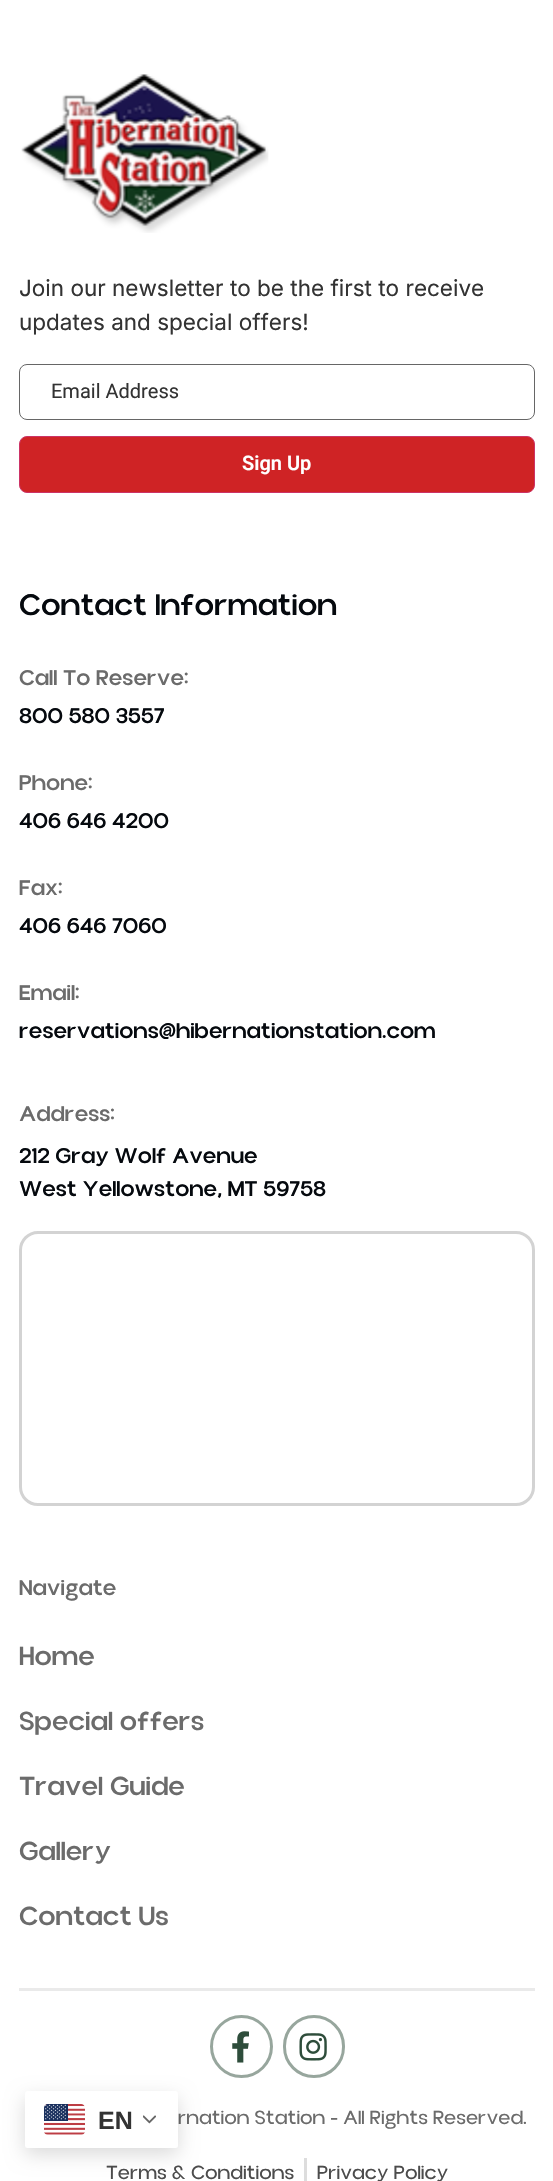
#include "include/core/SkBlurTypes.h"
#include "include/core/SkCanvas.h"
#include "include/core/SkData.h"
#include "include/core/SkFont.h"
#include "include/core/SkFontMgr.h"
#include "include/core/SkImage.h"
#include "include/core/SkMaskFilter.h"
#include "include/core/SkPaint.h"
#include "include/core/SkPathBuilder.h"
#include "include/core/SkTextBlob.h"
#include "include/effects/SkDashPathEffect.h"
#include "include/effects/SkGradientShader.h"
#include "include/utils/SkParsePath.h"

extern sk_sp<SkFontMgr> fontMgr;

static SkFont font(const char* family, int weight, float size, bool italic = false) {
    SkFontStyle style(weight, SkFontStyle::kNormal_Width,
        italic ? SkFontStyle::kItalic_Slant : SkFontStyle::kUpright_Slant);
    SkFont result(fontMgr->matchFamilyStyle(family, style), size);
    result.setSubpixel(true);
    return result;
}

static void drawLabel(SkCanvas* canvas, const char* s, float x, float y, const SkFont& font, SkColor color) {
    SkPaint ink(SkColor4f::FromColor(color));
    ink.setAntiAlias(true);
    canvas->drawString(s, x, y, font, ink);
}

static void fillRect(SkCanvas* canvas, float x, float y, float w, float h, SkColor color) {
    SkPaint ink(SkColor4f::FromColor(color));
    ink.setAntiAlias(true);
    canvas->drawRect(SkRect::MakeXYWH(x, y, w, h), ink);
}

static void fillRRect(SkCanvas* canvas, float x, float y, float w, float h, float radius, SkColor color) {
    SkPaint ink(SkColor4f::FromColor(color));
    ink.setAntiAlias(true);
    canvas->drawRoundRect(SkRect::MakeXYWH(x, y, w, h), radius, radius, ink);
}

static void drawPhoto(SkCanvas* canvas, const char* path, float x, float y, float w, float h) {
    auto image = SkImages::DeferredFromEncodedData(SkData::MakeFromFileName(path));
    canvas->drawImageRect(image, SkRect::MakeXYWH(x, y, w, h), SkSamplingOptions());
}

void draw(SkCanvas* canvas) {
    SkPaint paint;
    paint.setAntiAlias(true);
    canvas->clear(0xFFFFFFFF);
    drawPhoto(canvas, "assets/img1.png", 21, 74, 248, 159);
    SkFont font1 = font("Inter", 400, 22.5f);
    drawLabel(canvas, "Join our newsletter to be the first to receive", 19, 296, font1, 0xFF333333);
    drawLabel(canvas, "updates and special offers!", 19, 330, font1, 0xFF333333);
    paint.setStroke(true);
    paint.setStrokeWidth(1);
    paint.setColor(0xFF666666);
    canvas->drawRoundRect(SkRect::MakeXYWH(19.5f, 364.5f, 515, 55), 7.5f, 7.5f, paint);
    SkFont font2 = font("Roboto", 400, 20);
    drawLabel(canvas, "Email Address", 51, 398, font2, 0xFF333333);
    paint.setStroke(false);
    paint.setColor(0xFFCF2325);
    canvas->drawRoundRect(SkRect::MakeXYWH(19.5f, 436.5f, 515, 56), 7.5f, 7.5f, paint);
    paint.setStroke(true);
    paint.setColor(0xFFCC3366);
    canvas->drawRoundRect(SkRect::MakeXYWH(19.5f, 436.5f, 515, 56), 7.5f, 7.5f, paint);
    SkFont font3 = font("Roboto", 600, 20);
    drawLabel(canvas, "Sign Up", 242, 470, font3, 0xFFFFFFFF);
    fillRect(canvas, 19, 1988, 516, 3, 0xFFEAEAEA);
    SkFont font4 = font("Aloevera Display", 500, 31.25f);
    drawLabel(canvas, "Contact Information", 19, 615, font4, 0xFF05090E);
    SkFont font5 = font("Aloevera Display", 500, 22.5f);
    drawLabel(canvas, "Call To Reserve:", 19, 685, font5, 0xFF6B6B6B);
    drawLabel(canvas, "800 580 3557", 19, 723, font5, 0xFF05090E);
    drawLabel(canvas, "Phone:", 19, 790, font5, 0xFF6B6B6B);
    drawLabel(canvas, "406 646 4200", 19, 828, font5, 0xFF05090E);
    drawLabel(canvas, "Fax:", 19, 895, font5, 0xFF6B6B6B);
    drawLabel(canvas, "406 646 7060", 19, 933, font5, 0xFF05090E);
    drawLabel(canvas, "Email:", 19, 1000, font5, 0xFF6B6B6B);
    drawLabel(canvas, "reservations@hibernationstation.com", 19, 1038, font5, 0xFF05090E);
    drawLabel(canvas, "Address:", 19, 1121, font5, 0xFF6B6B6B);
    drawLabel(canvas, "212 Gray Wolf Avenue", 19, 1163, font5, 0xFF05090E);
    drawLabel(canvas, "West Yellowstone, MT 59758", 19, 1196, font5, 0xFF05090E);
    paint.setStrokeWidth(3);
    paint.setColor(0xFFD3D3D3);
    canvas->drawRoundRect(SkRect::MakeXYWH(20.5f, 1232.5f, 513, 272), 17.5f, 17.5f, paint);
    drawLabel(canvas, "Navigate", 19, 1595, font5, 0xFF6B6B6B);
    SkFont font6 = font("Aloevera Display", 500, 27.5f);
    drawLabel(canvas, "Home", 19, 1665, font6, 0xFF6B6B6B);
    drawLabel(canvas, "Special offers", 19, 1730, font6, 0xFF6B6B6B);
    drawLabel(canvas, "Travel Guide", 19, 1795, font6, 0xFF6B6B6B);
    drawLabel(canvas, "Gallery", 19, 1860, font6, 0xFF6B6B6B);
    drawLabel(canvas, "Contact Us", 19, 1925, font6, 0xFF6B6B6B);
    paint.setColor(0xFF97A69D);
    canvas->drawCircle(241.5f, 2046.5f, 30, paint);
    drawPhoto(canvas, "assets/img2.png", 232, 2031, 17, 32);
    canvas->drawRoundRect(SkRect::MakeXYWH(284.5f, 2016.5f, 59, 60), 29.5f, 29.5f, paint);
    drawPhoto(canvas, "assets/img3.png", 299, 2033, 28, 28);
    SkFont font7 = font("Aloevera Display", 400, 20);
    drawLabel(canvas, "rnation Station - All Rights Reserved.", 178, 2124, font7, 0xFF6B6B6B);
    drawLabel(canvas, "Terms & Conditions", 106, 2179, font7, 0xFF4C4C4C);
    fillRect(canvas, 304, 2158, 3, 23, 0xFFDDDDDD);
    drawLabel(canvas, "Privacy Policy", 317, 2179, font7, 0xFF4C4C4C);
    paint.setStroke(false);
    paint.setColor(0x26000000);
    paint.setMaskFilter(SkMaskFilter::MakeBlur(kNormal_SkBlurStyle, 9.5f));
    canvas->drawRoundRect(SkRect::MakeXYWH(25, 2098, 153, 56), 2.5f, 2.5f, paint);
    paint.setMaskFilter(nullptr);
    fillRRect(canvas, 25, 2091, 153, 57, 2.5f, 0xFFFFFFFF);
    drawPhoto(canvas, "assets/img4.png", 44, 2104, 41, 31);
    SkFont font8 = font("Liberation Sans", 700, 25);
    drawLabel(canvas, "EN", 98, 2129, font8, 0xFF333333);
    drawPhoto(canvas, "assets/img5.png", 143, 2115, 13, 9);
}
